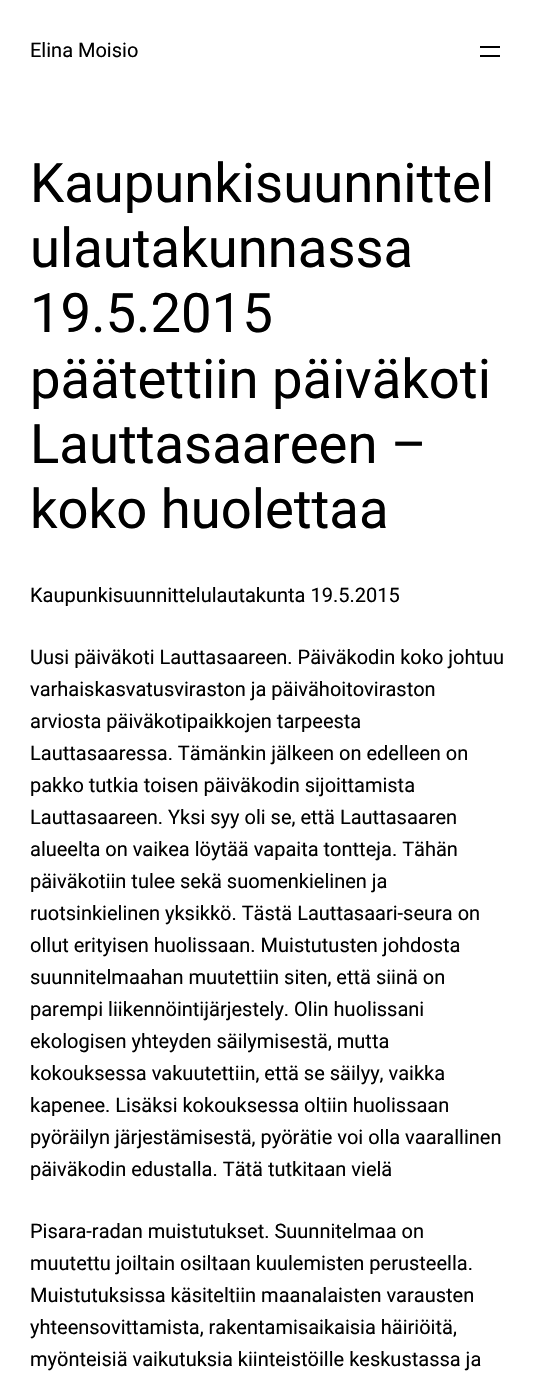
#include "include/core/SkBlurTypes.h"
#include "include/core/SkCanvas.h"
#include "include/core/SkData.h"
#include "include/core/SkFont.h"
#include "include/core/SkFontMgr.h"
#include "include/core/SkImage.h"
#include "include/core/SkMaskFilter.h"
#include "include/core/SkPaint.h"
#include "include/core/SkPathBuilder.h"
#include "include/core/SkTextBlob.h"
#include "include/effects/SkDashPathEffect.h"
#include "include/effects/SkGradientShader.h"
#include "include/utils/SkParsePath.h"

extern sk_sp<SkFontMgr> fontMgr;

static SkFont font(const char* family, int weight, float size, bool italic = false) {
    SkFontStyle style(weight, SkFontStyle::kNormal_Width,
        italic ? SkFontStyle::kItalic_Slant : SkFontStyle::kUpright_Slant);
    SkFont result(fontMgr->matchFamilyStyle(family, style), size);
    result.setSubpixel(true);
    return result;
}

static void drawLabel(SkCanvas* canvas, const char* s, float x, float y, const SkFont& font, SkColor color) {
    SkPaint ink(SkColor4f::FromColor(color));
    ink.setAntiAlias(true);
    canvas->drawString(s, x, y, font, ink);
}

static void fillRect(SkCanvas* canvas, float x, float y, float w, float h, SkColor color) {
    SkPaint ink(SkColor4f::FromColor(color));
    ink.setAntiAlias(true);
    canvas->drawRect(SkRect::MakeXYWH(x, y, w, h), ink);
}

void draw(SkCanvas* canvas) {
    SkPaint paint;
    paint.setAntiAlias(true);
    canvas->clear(0xFFFFFFFF);
    SkFont font1 = font("Roboto", 400, 20);
    drawLabel(canvas, "Elina Moisio", 30, 57, font1, 0xFF000000);
    fillRect(canvas, 480, 46, 20, 2, 0xFF000000);
    fillRect(canvas, 480, 55, 20, 2, 0xFF000000);
    SkFont font2 = font("Roboto", 400, 54.4f);
    drawLabel(canvas, "Kaupunkisuunnittel", 30, 202, font2, 0xFF000000);
    drawLabel(canvas, "ulautakunnassa", 30, 267, font2, 0xFF000000);
    drawLabel(canvas, "19.5.2015", 30, 332, font2, 0xFF000000);
    drawLabel(canvas, "päätettiin päiväkoti", 30, 398, font2, 0xFF000000);
    drawLabel(canvas, "Lauttasaareen –", 30, 463, font2, 0xFF000000);
    drawLabel(canvas, "koko huolettaa", 30, 528, font2, 0xFF000000);
    drawLabel(canvas, "Kaupunkisuunnittelulautakunta 19.5.2015", 30, 602, font1, 0xFF000000);
    drawLabel(canvas, "Uusi päiväkoti Lauttasaareen. Päiväkodin koko johtuu", 30, 664, font1, 0xFF000000);
    drawLabel(canvas, "varhaiskasvatusviraston ja päivähoitoviraston", 30, 696, font1, 0xFF000000);
    drawLabel(canvas, "arviosta päiväkotipaikkojen tarpeesta", 30, 728, font1, 0xFF000000);
    drawLabel(canvas, "Lauttasaaressa. Tämänkin jälkeen on edelleen on", 30, 760, font1, 0xFF000000);
    drawLabel(canvas, "pakko tutkia toisen päiväkodin sijoittamista", 30, 792, font1, 0xFF000000);
    drawLabel(canvas, "Lauttasaareen. Yksi syy oli se, että Lauttasaaren", 30, 824, font1, 0xFF000000);
    drawLabel(canvas, "alueelta on vaikea löytää vapaita tontteja. Tähän", 30, 856, font1, 0xFF000000);
    drawLabel(canvas, "päiväkotiin tulee sekä suomenkielinen ja", 30, 888, font1, 0xFF000000);
    drawLabel(canvas, "ruotsinkielinen yksikkö. Tästä Lauttasaari-seura on", 30, 920, font1, 0xFF000000);
    drawLabel(canvas, "ollut erityisen huolissaan. Muistutusten johdosta", 30, 952, font1, 0xFF000000);
    drawLabel(canvas, "suunnitelmaahan muutettiin siten, että siinä on", 30, 984, font1, 0xFF000000);
    drawLabel(canvas, "parempi liikennöintijärjestely. Olin huolissani", 30, 1016, font1, 0xFF000000);
    drawLabel(canvas, "ekologisen yhteyden säilymisestä, mutta", 30, 1048, font1, 0xFF000000);
    drawLabel(canvas, "kokouksessa vakuutettiin, että se säilyy, vaikka", 30, 1080, font1, 0xFF000000);
    drawLabel(canvas, "kapenee. Lisäksi kokouksessa oltiin huolissaan", 30, 1112, font1, 0xFF000000);
    drawLabel(canvas, "pyöräilyn järjestämisestä, pyörätie voi olla vaarallinen", 30, 1144, font1, 0xFF000000);
    drawLabel(canvas, "päiväkodin edustalla. Tätä tutkitaan vielä", 30, 1176, font1, 0xFF000000);
    drawLabel(canvas, "Pisara-radan muistutukset. Suunnitelmaa on", 30, 1238, font1, 0xFF000000);
    drawLabel(canvas, "muutettu joiltain osiltaan kuulemisten perusteella.", 30, 1270, font1, 0xFF000000);
    drawLabel(canvas, "Muistutuksissa käsiteltiin maanalaisten varausten", 30, 1302, font1, 0xFF000000);
    drawLabel(canvas, "yhteensovittamista, rakentamisaikaisia häiriöitä,", 30, 1334, font1, 0xFF000000);
    drawLabel(canvas, "myönteisiä vaikutuksia kiinteistöille keskustassa ja", 30, 1366, font1, 0xFF000000);
}
